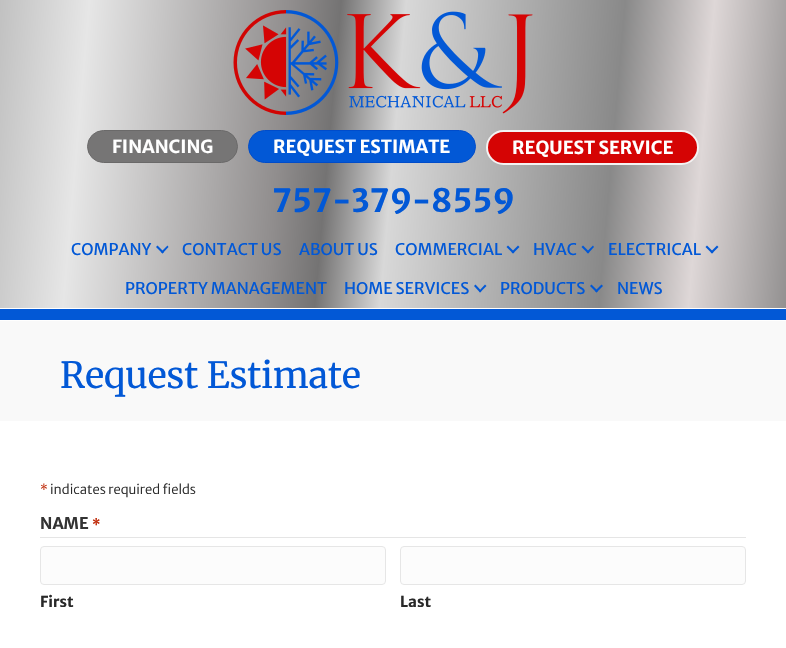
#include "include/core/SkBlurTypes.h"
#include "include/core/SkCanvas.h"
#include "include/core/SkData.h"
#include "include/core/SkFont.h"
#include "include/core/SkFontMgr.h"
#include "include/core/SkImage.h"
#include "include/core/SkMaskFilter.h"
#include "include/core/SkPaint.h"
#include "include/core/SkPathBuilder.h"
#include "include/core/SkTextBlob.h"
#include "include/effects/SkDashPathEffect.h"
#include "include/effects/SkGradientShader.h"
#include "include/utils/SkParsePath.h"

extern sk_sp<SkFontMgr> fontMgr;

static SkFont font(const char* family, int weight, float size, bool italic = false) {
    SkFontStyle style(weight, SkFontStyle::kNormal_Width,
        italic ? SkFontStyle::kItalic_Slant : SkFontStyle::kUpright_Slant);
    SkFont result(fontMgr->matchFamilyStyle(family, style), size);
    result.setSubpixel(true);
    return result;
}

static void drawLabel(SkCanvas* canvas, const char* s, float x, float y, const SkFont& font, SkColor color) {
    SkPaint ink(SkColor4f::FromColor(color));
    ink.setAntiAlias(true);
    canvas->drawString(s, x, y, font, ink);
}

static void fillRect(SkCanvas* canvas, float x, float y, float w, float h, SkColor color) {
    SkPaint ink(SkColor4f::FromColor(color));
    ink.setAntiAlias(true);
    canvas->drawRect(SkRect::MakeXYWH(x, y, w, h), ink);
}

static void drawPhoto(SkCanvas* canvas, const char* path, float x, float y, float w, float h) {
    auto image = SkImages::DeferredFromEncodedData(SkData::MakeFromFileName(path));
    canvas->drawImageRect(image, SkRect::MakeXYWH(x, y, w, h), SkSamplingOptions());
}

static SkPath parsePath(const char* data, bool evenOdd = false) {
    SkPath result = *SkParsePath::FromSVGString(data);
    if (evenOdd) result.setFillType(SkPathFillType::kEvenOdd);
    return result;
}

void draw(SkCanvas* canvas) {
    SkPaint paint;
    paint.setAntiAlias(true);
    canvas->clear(0xFFFFFFFF);
    {
        const SkColor colors[] = {0xFFC1C1C1, 0xFFE6E6E6, 0xFF908D8D, 0xFF747373, 0xFFD8D8D8, 0xFF898989, 0xFFDED7D7, 0xFF939191};
        const float stops[] = {0, 0.11f, 0.36f, 0.42f, 0.5f, 0.77f, 0.88f, 1};
        const SkPoint ends[] = {{-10, 119}, {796, 189}};
        paint.setShader(SkGradientShader::MakeLinear(ends, colors, stops, 8, SkTileMode::kClamp));
        paint.setAlpha(255);
    }
    canvas->drawRect(SkRect::MakeXYWH(0, 0, 786, 308), paint);
    drawPhoto(canvas, "assets/img1.png", 233, 10, 300, 105);
    paint.setShader(nullptr);
    paint.setColor(0xFF767575);
    canvas->drawRoundRect(SkRect::MakeXYWH(87.5f, 130.5f, 150, 32), 16, 16, paint);
    paint.setStroke(true);
    paint.setStrokeWidth(1);
    paint.setColor(0xFF6A6969);
    canvas->drawRoundRect(SkRect::MakeXYWH(87.5f, 130.5f, 150, 32), 16, 16, paint);
    SkFont font1 = font("Merriweather Sans", 700, 18);
    drawLabel(canvas, "FINANCING", 112, 153, font1, 0xFFFFFFFF);
    paint.setStroke(false);
    paint.setColor(0xFF0258D6);
    canvas->drawRoundRect(SkRect::MakeXYWH(248.5f, 130.5f, 227, 32), 16, 16, paint);
    paint.setStroke(true);
    paint.setColor(0xFF004CCA);
    canvas->drawRoundRect(SkRect::MakeXYWH(248.5f, 130.5f, 227, 32), 16, 16, paint);
    drawLabel(canvas, "REQUEST ESTIMATE", 273, 153, font1, 0xFFFFFFFF);
    paint.setStroke(false);
    paint.setColor(0xFFD50404);
    canvas->drawRoundRect(SkRect::MakeXYWH(487, 131, 211, 33), 16.5f, 16.5f, paint);
    paint.setStroke(true);
    paint.setStrokeWidth(2);
    paint.setColor(0xFFF3F3F3);
    canvas->drawRoundRect(SkRect::MakeXYWH(487, 131, 211, 33), 16.5f, 16.5f, paint);
    drawLabel(canvas, "REQUEST SERVICE", 512, 154, font1, 0xFFFFFFFF);
    SkFont font2 = font("Merriweather Sans", 700, 32);
    drawLabel(canvas, "757-379-8559", 272, 212, font2, 0xFF0258D6);
    SkFont font3 = font("Merriweather Sans", 400, 16);
    drawLabel(canvas, "COMPANY", 71, 255, font3, 0xFF0258D6);
    paint.setStroke(false);
    paint.setColor(0xFF0258D6);
    canvas->drawPath(parsePath("M167.5 245.5L168.5 247L162.5 253.5L161 252Z"), paint);
    canvas->drawPath(parsePath("M157.5 245.5L164 252L162.5 253.5L156 247Z"), paint);
    drawLabel(canvas, "CONTACT US", 182, 255, font3, 0xFF0258D6);
    drawLabel(canvas, "ABOUT US", 299, 255, font3, 0xFF0258D6);
    drawLabel(canvas, "COMMERCIAL", 395, 255, font3, 0xFF0258D6);
    canvas->drawPath(parsePath("M518 245.5L519.5 247L513 253.5L511.5 252Z"), paint);
    canvas->drawPath(parsePath("M508 245.5L514.5 252L513 253.5L506.5 247Z"), paint);
    drawLabel(canvas, "HVAC", 533, 255, font3, 0xFF0258D6);
    canvas->drawPath(parsePath("M593 245.5L594 247L588 253.5L586.5 252Z"), paint);
    canvas->drawPath(parsePath("M583 245.5L589.5 252L588 253.5L581.5 247Z"), paint);
    drawLabel(canvas, "ELECTRICAL", 608, 255, font3, 0xFF0258D6);
    canvas->drawPath(parsePath("M717 245.5L718.5 247L712 253.5L710.5 252Z"), paint);
    canvas->drawPath(parsePath("M707 245.5L713.5 252L712 253.5L705.5 247Z"), paint);
    drawLabel(canvas, "PROPERTY MANAGEMENT", 125, 294, font3, 0xFF0258D6);
    drawLabel(canvas, "HOME SERVICES", 344, 294, font3, 0xFF0258D6);
    canvas->drawPath(parsePath("M485 284.5L486.5 286L480 292.5L479 291Z"), paint);
    canvas->drawPath(parsePath("M475.5 284.5L481.5 291L480 292.5L474 286Z"), paint);
    drawLabel(canvas, "PRODUCTS", 500, 294, font3, 0xFF0258D6);
    canvas->drawPath(parsePath("M601.5 284.5L603 286L596.5 292.5L595 291Z"), paint);
    canvas->drawPath(parsePath("M591.5 284.5L598 291L596.5 292.5L590 286Z"), paint);
    drawLabel(canvas, "NEWS", 617, 294, font3, 0xFF0258D6);
    fillRect(canvas, 0, 309, 786, 11, 0xFF0258D6);
    fillRect(canvas, 0, 321, 786, 100, 0xFFF9F9F9);
    SkFont font4 = font("Merriweather", 300, 36);
    drawLabel(canvas, "Request Estimate", 60, 388, font4, 0xFF0258D6);
    SkFont font5 = font("Merriweather Sans", 300, 13);
    drawLabel(canvas, "*", 40, 494, font5, 0xFFC02B0A);
    drawLabel(canvas, "indicates required fields", 50, 494, font5, 0xFF292929);
    fillRect(canvas, 40, 537, 706, 1, 0xFFE5E5E5);
    SkFont font6 = font("Merriweather Sans", 700, 16);
    drawLabel(canvas, "NAME", 40, 529, font6, 0xFF333333);
    SkFont font7 = font("Merriweather Sans", 700, 13);
    drawLabel(canvas, "*", 92, 529, font7, 0xFFC02B0A);
    paint.setColor(0xFFFCFCFC);
    canvas->drawRoundRect(SkRect::MakeXYWH(40.5f, 546.5f, 345, 38), 3.5f, 3.5f, paint);
    paint.setStroke(true);
    paint.setStrokeWidth(1);
    paint.setColor(0xFFE6E6E6);
    canvas->drawRoundRect(SkRect::MakeXYWH(40.5f, 546.5f, 345, 38), 3.5f, 3.5f, paint);
    SkFont font8 = font("Merriweather Sans", 700, 15);
    drawLabel(canvas, "First", 40, 607, font8, 0xFF292929);
    paint.setStroke(false);
    paint.setColor(0xFFFCFCFC);
    canvas->drawRoundRect(SkRect::MakeXYWH(400.5f, 546.5f, 345, 38), 3.5f, 3.5f, paint);
    paint.setStroke(true);
    paint.setColor(0xFFE6E6E6);
    canvas->drawRoundRect(SkRect::MakeXYWH(400.5f, 546.5f, 345, 38), 3.5f, 3.5f, paint);
    drawLabel(canvas, "Last", 400, 607, font8, 0xFF292929);
}
